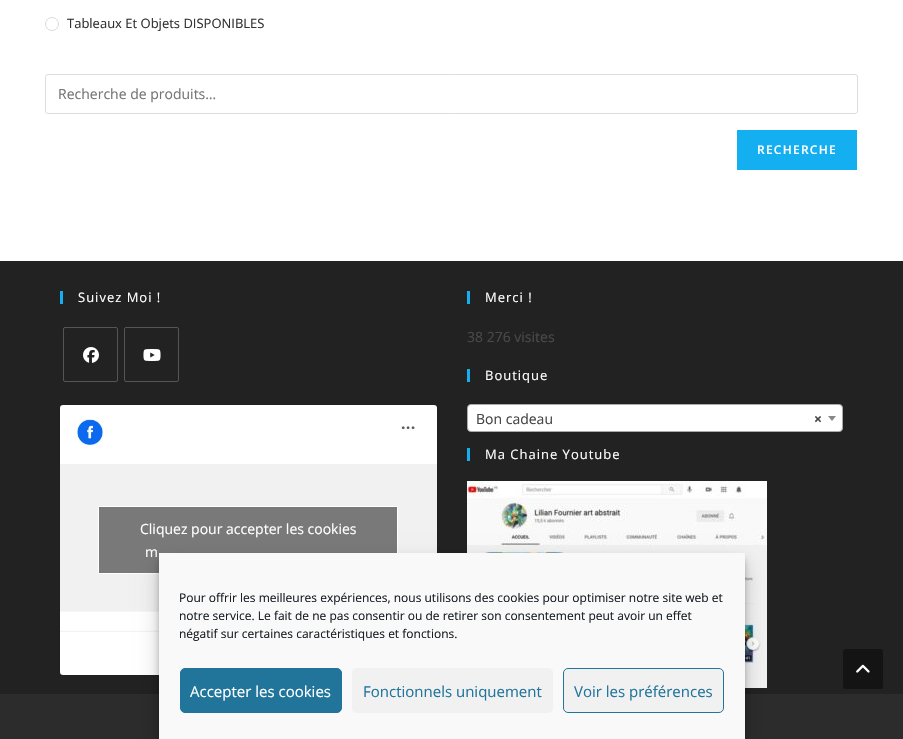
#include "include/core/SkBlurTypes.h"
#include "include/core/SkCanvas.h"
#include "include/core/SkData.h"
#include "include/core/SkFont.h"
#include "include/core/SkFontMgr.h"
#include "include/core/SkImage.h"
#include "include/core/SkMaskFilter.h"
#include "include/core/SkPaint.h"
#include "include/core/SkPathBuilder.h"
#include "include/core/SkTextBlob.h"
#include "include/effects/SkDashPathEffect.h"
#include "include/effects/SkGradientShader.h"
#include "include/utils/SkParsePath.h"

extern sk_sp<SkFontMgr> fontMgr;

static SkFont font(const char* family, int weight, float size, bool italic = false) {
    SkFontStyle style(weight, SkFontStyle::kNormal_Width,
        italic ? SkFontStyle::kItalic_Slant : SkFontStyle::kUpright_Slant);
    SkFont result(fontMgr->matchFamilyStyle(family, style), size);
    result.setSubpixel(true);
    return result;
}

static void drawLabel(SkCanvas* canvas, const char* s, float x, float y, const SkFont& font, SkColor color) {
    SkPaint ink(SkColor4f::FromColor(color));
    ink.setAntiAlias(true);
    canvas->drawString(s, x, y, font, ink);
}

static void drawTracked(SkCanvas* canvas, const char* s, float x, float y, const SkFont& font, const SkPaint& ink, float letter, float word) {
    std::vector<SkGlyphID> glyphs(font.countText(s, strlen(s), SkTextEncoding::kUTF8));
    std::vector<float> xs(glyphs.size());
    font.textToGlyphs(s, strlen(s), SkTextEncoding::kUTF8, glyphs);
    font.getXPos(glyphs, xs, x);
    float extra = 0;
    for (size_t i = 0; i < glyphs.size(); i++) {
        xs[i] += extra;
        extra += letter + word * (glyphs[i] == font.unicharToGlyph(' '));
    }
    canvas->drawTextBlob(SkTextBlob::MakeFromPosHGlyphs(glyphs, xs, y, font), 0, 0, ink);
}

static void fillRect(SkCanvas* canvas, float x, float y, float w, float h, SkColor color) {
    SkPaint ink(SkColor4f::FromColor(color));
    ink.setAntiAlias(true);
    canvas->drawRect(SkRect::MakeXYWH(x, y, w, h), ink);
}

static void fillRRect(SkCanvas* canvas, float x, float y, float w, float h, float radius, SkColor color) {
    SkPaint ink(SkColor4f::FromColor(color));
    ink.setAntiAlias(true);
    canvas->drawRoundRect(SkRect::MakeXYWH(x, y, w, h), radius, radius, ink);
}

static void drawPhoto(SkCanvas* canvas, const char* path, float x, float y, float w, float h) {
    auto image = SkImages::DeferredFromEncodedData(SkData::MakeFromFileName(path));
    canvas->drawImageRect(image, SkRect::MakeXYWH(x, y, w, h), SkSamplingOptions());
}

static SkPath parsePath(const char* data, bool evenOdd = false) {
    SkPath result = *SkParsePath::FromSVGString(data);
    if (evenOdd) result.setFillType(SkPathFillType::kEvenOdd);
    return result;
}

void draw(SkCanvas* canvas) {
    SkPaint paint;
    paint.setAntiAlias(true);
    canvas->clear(0xFFFFFFFF);
    paint.setStroke(true);
    paint.setStrokeWidth(1);
    paint.setColor(0xFFD9D9D9);
    canvas->drawCircle(52, 24, 6.5f, paint);
    SkFont font1 = font("Open Sans", 400, 13);
    drawLabel(canvas, "Tableaux Et Objets DISPONIBLES", 67, 28, font1, 0xFF333333);
    paint.setColor(0xFFDDDDDD);
    canvas->drawRoundRect(SkRect::MakeXYWH(45.5f, 74.5f, 812, 39), 2.5f, 2.5f, paint);
    SkFont font2 = font("Open Sans", 400, 14);
    drawLabel(canvas, "Recherche de produits…", 58, 99, font2, 0xFF757575);
    fillRect(canvas, 737, 130, 120, 40, 0xFF13AFF0);
    SkFont font3 = font("Open Sans", 600, 12);
    paint.setStroke(false);
    paint.setColor(0xFFFFFFFF);
    drawTracked(canvas, "RECHERCHE", 757, 154, font3, paint, 1.25f, 0);
    fillRect(canvas, 0, 261, 903, 433, 0xFF222222);
    fillRect(canvas, 60, 291, 3, 13, 0xFF13AFF0);
    drawTracked(canvas, "Suivez Moi !", 78, 302, font1, paint, 1, 0);
    paint.setStroke(true);
    paint.setColor(0xFF555555);
    canvas->drawRoundRect(SkRect::MakeXYWH(63.5f, 327.5f, 54, 54), 1.5f, 1.5f, paint);
    drawPhoto(canvas, "assets/img1.png", 83, 347, 16, 16);
    canvas->drawRoundRect(SkRect::MakeXYWH(124.5f, 327.5f, 54, 54), 1.5f, 1.5f, paint);
    drawPhoto(canvas, "assets/img2.png", 143, 349, 18, 12);
    paint.setStroke(false);
    paint.setColor(0x80000000);
    paint.setMaskFilter(SkMaskFilter::MakeBlur(kNormal_SkBlurStyle, 0.5f));
    canvas->drawRoundRect(SkRect::MakeXYWH(60, 405, 377, 270), 3, 3, paint);
    paint.setMaskFilter(nullptr);
    drawPhoto(canvas, "assets/img3.png", 60, 405, 377, 270);
    paint.setColor(0xFF797979);
    canvas->drawRect(SkRect::MakeXYWH(98.5f, 506.5f, 299, 67), paint);
    paint.setStroke(true);
    paint.setColor(0xFFFFFFFF);
    canvas->drawRect(SkRect::MakeXYWH(98.5f, 506.5f, 299, 67), paint);
    drawLabel(canvas, "Cliquez pour accepter les cookies", 140, 534, font2, 0xFFFFFFFF);
    drawLabel(canvas, "m", 145, 557, font2, 0xFFFFFFFF);
    fillRect(canvas, 467, 291, 3, 13, 0xFF13AFF0);
    paint.setStroke(false);
    drawTracked(canvas, "Merci !", 485, 302, font1, paint, 1, 0);
    drawLabel(canvas, "38 276 visites", 467, 342, font2, 0xFF4A4A4A);
    fillRect(canvas, 467, 369, 3, 13, 0xFF13AFF0);
    drawTracked(canvas, "Boutique", 485, 380, font1, paint, 1, 0);
    canvas->drawRoundRect(SkRect::MakeXYWH(467.5f, 404.5f, 375, 27), 3.5f, 3.5f, paint);
    paint.setStroke(true);
    paint.setColor(0xFFAAAAAA);
    canvas->drawRoundRect(SkRect::MakeXYWH(467.5f, 404.5f, 375, 27), 3.5f, 3.5f, paint);
    drawLabel(canvas, "Bon cadeau", 476, 424, font2, 0xFF444444);
    SkFont font4 = font("Open Sans", 700, 14);
    drawLabel(canvas, "×", 814, 424, font4, 0xFF444444);
    paint.setStroke(false);
    paint.setColor(0xFF888888);
    canvas->drawPath(parsePath("M828 416H836L832 421Z"), paint);
    fillRect(canvas, 467, 448, 3, 13, 0xFF13AFF0);
    paint.setColor(0xFFFFFFFF);
    drawTracked(canvas, "Ma Chaine Youtube", 485, 459, font1, paint, 1, 0);
    drawPhoto(canvas, "assets/img4.png", 467, 481, 300, 207);
    fillRect(canvas, 0, 694, 903, 45, 0xFF2C2C2C);
    paint.setColor(0x3B000000);
    paint.setMaskFilter(SkMaskFilter::MakeBlur(kNormal_SkBlurStyle, 3));
    canvas->drawRect(SkRect::MakeXYWH(159, 559, 586, 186), paint);
    paint.setMaskFilter(nullptr);
    paint.setColor(0x30000000);
    paint.setMaskFilter(SkMaskFilter::MakeBlur(kNormal_SkBlurStyle, 10));
    canvas->drawRect(SkRect::MakeXYWH(159, 563, 586, 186), paint);
    paint.setMaskFilter(nullptr);
    fillRect(canvas, 159, 553, 586, 186, 0xFFF9F9F9);
    SkFont font5 = font("Open Sans", 400, 12);
    drawLabel(canvas, "Pour offrir les meilleures expériences, nous utilisons des cookies pour optimiser notre site web et", 179, 602, font5, 0xFF191E23);
    drawLabel(canvas, "notre service. Le fait de ne pas consentir ou de retirer son consentement peut avoir un effet", 179, 620, font5, 0xFF191E23);
    drawLabel(canvas, "négatif sur certaines caractéristiques et fonctions.", 179, 638, font5, 0xFF191E23);
    paint.setColor(0xFF21759B);
    canvas->drawRoundRect(SkRect::MakeXYWH(180.5f, 668.5f, 161, 44), 4.5f, 4.5f, paint);
    paint.setStroke(true);
    canvas->drawRoundRect(SkRect::MakeXYWH(180.5f, 668.5f, 161, 44), 4.5f, 4.5f, paint);
    SkFont font6 = font("Open Sans", 400, 15);
    drawLabel(canvas, "Accepter les cookies", 190, 697, font6, 0xFFFFFFFF);
    fillRRect(canvas, 352, 668, 201, 45, 5, 0xFFF1F1F1);
    drawLabel(canvas, "Fonctionnels uniquement", 363, 697, font6, 0xFF21759B);
    paint.setStroke(false);
    paint.setColor(0xFFF1F1F1);
    canvas->drawRoundRect(SkRect::MakeXYWH(563.5f, 668.5f, 160, 44), 4.5f, 4.5f, paint);
    paint.setStroke(true);
    paint.setColor(0xFF21759B);
    canvas->drawRoundRect(SkRect::MakeXYWH(563.5f, 668.5f, 160, 44), 4.5f, 4.5f, paint);
    drawLabel(canvas, "Voir les préférences", 574, 697, font6, 0xFF21759B);
    fillRRect(canvas, 843, 649, 40, 40, 2, 0xFF141414);
    drawPhoto(canvas, "assets/img5.png", 856, 664, 14, 9);
}
